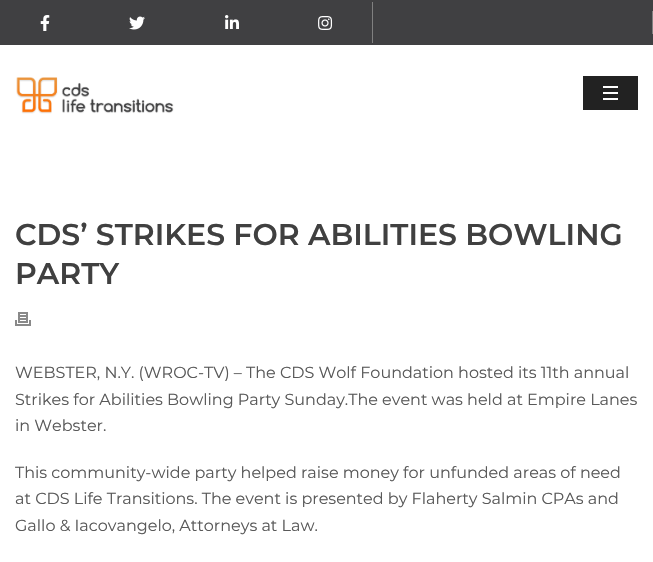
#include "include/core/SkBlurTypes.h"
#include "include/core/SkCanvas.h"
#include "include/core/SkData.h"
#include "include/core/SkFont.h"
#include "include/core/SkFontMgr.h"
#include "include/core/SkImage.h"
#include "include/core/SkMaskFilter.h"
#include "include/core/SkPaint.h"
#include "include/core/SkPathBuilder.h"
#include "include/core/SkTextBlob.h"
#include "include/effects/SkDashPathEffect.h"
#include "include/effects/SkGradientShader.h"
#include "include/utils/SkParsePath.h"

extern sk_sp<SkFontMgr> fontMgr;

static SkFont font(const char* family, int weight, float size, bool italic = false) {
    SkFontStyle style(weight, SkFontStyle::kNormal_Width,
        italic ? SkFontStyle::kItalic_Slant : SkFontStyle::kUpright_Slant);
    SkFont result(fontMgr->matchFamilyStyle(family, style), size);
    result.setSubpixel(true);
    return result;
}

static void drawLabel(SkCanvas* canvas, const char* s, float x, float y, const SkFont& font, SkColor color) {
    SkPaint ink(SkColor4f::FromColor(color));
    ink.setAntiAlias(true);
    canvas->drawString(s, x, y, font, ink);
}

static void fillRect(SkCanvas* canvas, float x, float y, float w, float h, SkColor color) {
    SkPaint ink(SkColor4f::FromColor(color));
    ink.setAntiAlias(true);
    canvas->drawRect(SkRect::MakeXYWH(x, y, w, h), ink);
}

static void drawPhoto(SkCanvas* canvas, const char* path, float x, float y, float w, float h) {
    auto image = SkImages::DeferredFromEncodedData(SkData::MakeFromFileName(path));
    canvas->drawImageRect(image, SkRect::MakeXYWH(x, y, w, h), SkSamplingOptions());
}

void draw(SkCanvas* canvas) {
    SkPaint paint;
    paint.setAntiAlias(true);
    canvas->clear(0xFFFFFFFF);
    fillRect(canvas, 0, 0, 653, 45, 0xFF404042);
    fillRect(canvas, 372, 2, 1, 41, 0xFF808080);
    drawPhoto(canvas, "assets/img1.png", 40, 15, 10, 16);
    drawPhoto(canvas, "assets/img2.png", 129, 16, 16, 14);
    drawPhoto(canvas, "assets/img3.png", 225, 15, 14, 14);
    drawPhoto(canvas, "assets/img4.png", 318, 16, 15, 14);
    fillRect(canvas, 652, 11, 1, 23, 0xFF808080);
    drawPhoto(canvas, "assets/img5.png", 16, 77, 158, 37);
    fillRect(canvas, 583, 76, 55, 34, 0xFF222222);
    fillRect(canvas, 603, 92, 15, 2, 0xFFFFFFFF);
    fillRect(canvas, 603, 86, 15, 2, 0xFFFFFFFF);
    fillRect(canvas, 603, 98, 15, 2, 0xFFFFFFFF);
    SkFont font1 = font("Montserrat", 600, 30);
    drawLabel(canvas, "CDS’ STRIKES FOR ABILITIES BOWLING", 15, 245, font1, 0xFF404040);
    drawLabel(canvas, "PARTY", 15, 284, font1, 0xFF404040);
    drawPhoto(canvas, "assets/img6.png", 15, 312, 16, 14);
    SkFont font2 = font("Montserrat", 400, 16);
    drawLabel(canvas, "WEBSTER, N.Y. (WROC-TV) – The CDS Wolf Foundation hosted its 11th annual", 15, 378, font2, 0xFF595959);
    drawLabel(canvas, "Strikes for Abilities Bowling Party Sunday.The event was held at Empire Lanes", 15, 405, font2, 0xFF595959);
    drawLabel(canvas, "in Webster.", 15, 431, font2, 0xFF595959);
    drawLabel(canvas, "This community-wide party helped raise money for unfunded areas of need", 15, 478, font2, 0xFF595959);
    drawLabel(canvas, "at CDS Life Transitions. The event is presented by Flaherty Salmin CPAs and", 15, 504, font2, 0xFF595959);
    drawLabel(canvas, "Gallo & Iacovangelo, Attorneys at Law.", 15, 531, font2, 0xFF595959);
}
